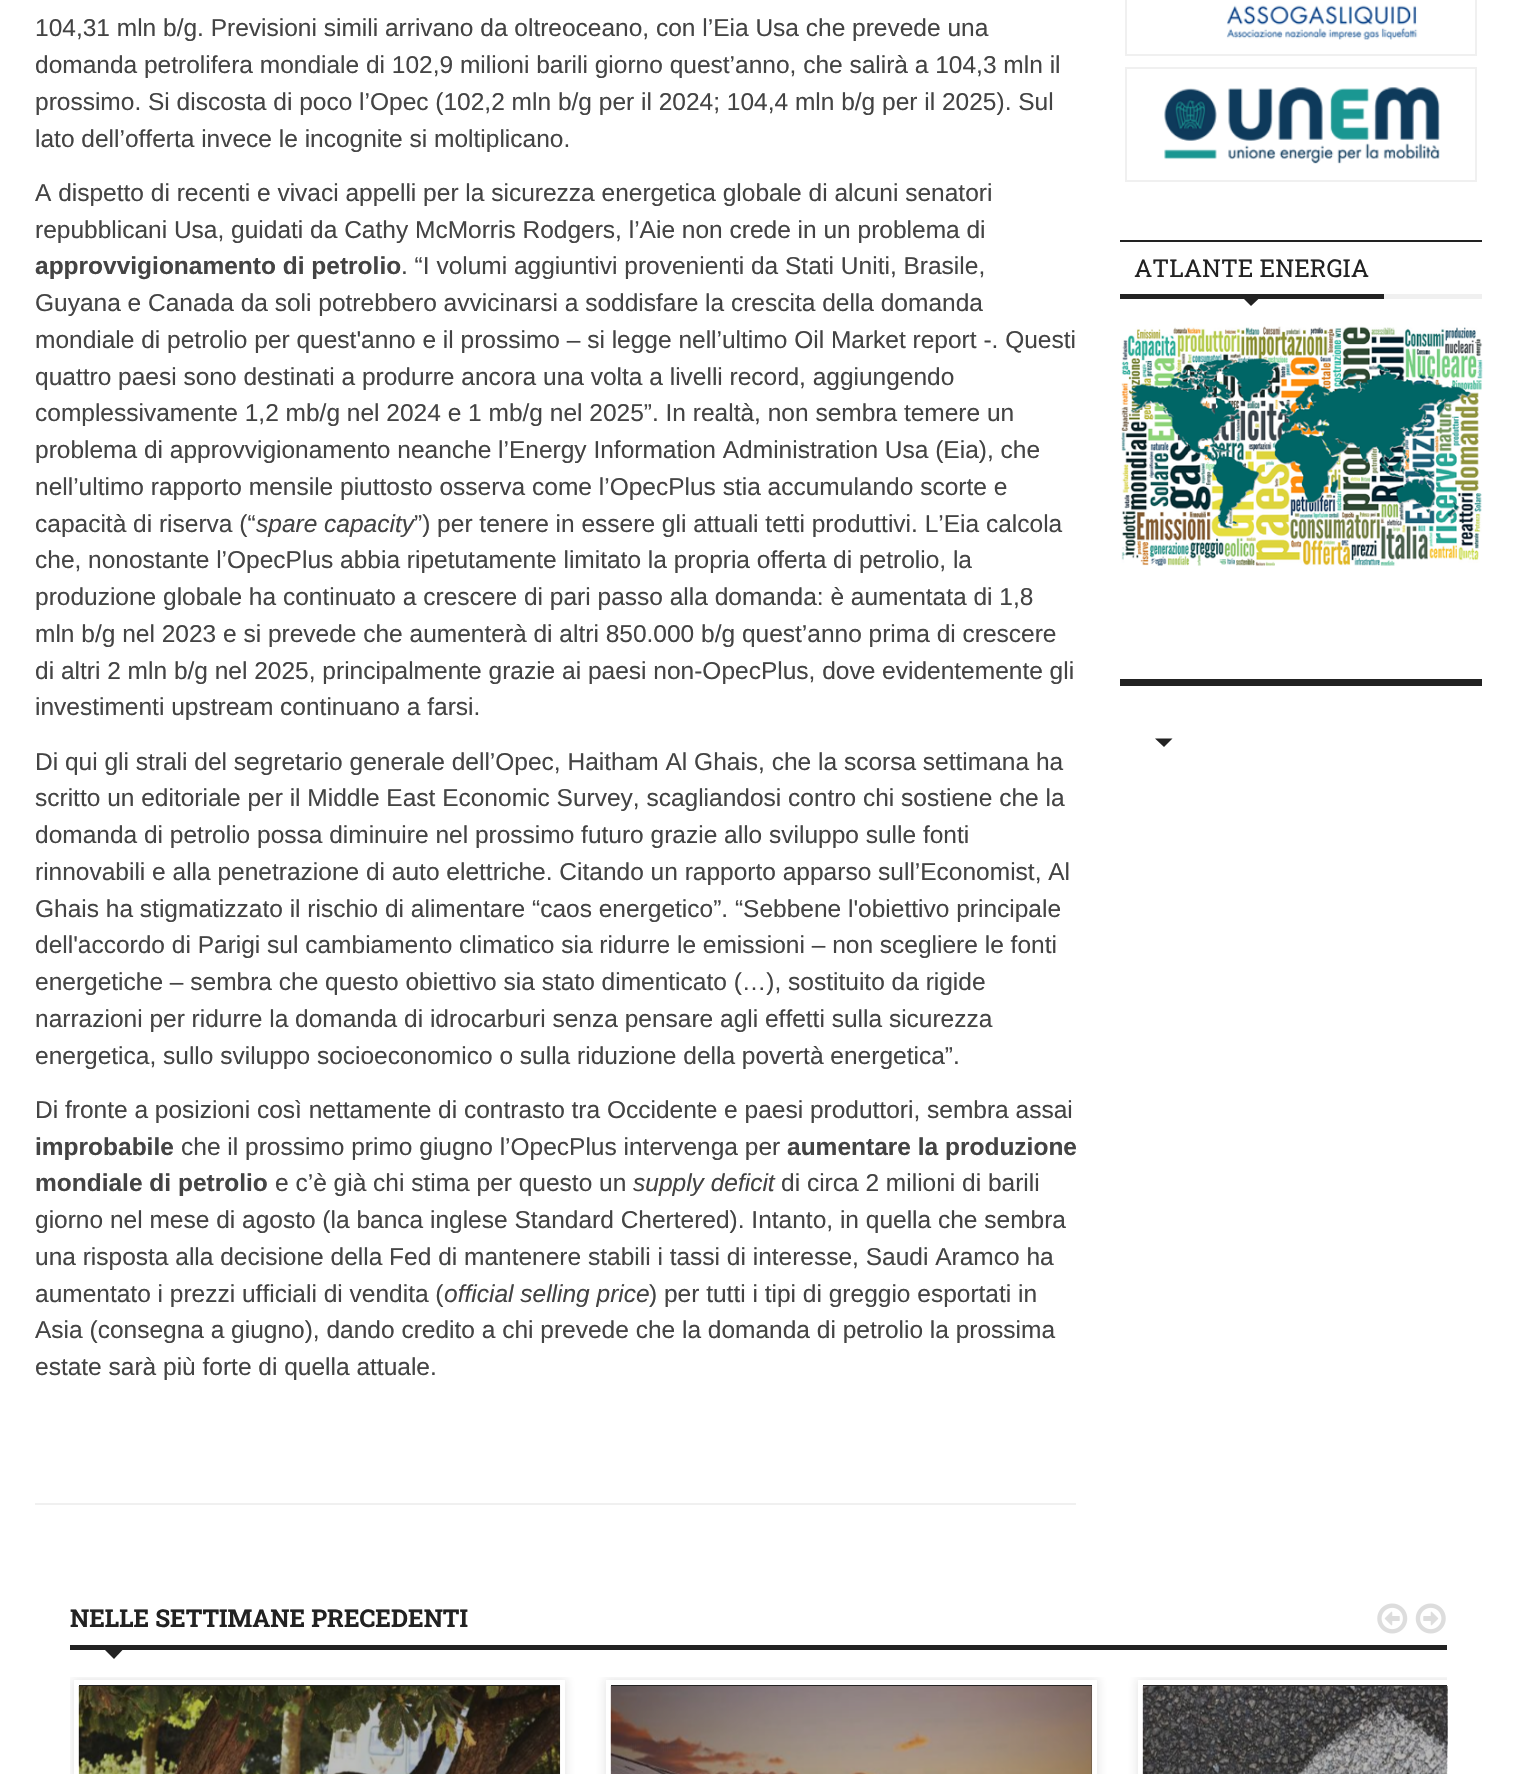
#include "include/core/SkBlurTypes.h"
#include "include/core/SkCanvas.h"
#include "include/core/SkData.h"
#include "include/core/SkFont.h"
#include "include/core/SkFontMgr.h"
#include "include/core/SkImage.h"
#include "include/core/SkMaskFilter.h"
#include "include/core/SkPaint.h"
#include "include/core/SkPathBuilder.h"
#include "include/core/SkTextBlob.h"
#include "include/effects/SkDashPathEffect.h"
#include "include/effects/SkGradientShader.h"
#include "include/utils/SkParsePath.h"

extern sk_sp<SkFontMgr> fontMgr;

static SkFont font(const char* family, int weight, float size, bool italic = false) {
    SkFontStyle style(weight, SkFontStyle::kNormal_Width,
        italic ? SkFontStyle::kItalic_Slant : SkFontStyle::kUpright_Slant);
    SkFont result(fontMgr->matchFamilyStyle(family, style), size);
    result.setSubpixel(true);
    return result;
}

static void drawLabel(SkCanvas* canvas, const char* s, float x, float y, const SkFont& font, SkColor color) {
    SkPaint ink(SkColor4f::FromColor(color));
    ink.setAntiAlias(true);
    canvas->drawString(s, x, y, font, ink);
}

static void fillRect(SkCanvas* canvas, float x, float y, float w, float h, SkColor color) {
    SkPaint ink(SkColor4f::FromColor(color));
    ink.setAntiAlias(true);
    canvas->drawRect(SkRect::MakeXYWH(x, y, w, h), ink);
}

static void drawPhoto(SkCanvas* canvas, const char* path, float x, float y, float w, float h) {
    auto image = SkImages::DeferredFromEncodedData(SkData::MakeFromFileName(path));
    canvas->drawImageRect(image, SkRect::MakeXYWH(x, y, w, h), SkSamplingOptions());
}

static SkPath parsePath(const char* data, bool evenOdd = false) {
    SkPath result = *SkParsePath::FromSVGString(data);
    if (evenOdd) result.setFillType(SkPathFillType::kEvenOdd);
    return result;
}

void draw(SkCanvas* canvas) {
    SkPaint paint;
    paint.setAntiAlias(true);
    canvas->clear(0xFFFFFFFF);
    fillRect(canvas, 35, 1503, 1041, 2, 0xFFF0F0F0);
    SkFont font1 = font("Liberation Sans", 400, 24.5f);
    drawLabel(canvas, "104,31 mln b/g. Previsioni simili arrivano da oltreoceano, con l’Eia Usa che prevede una", 35, 36, font1, 0xFF444444);
    drawLabel(canvas, "domanda petrolifera mondiale di 102,9 milioni barili giorno quest’anno, che salirà a 104,3 mln il", 35, 73, font1, 0xFF444444);
    drawLabel(canvas, "prossimo. Si discosta di poco l’Opec (102,2 mln b/g per il 2024; 104,4 mln b/g per il 2025). Sul", 35, 110, font1, 0xFF444444);
    drawLabel(canvas, "lato dell’offerta invece le incognite si moltiplicano.", 35, 147, font1, 0xFF444444);
    drawLabel(canvas, "A dispetto di recenti e vivaci appelli per la sicurezza energetica globale di alcuni senatori", 35, 201, font1, 0xFF444444);
    drawLabel(canvas, "repubblicani Usa, guidati da Cathy McMorris Rodgers, l’Aie non crede in un problema di", 35, 238, font1, 0xFF444444);
    SkFont font2 = font("Liberation Sans", 700, 24.5f);
    drawLabel(canvas, "approvvigionamento di petrolio", 35, 274, font2, 0xFF444444);
    drawLabel(canvas, ". “I volumi aggiuntivi provenienti da Stati Uniti, Brasile,", 401, 274, font1, 0xFF444444);
    drawLabel(canvas, "Guyana e Canada da soli potrebbero avvicinarsi a soddisfare la crescita della domanda", 35, 311, font1, 0xFF444444);
    drawLabel(canvas, "mondiale di petrolio per quest'anno e il prossimo – si legge nell’ultimo Oil Market report -. Questi", 35, 348, font1, 0xFF444444);
    drawLabel(canvas, "quattro paesi sono destinati a produrre ancora una volta a livelli record, aggiungendo", 35, 385, font1, 0xFF444444);
    drawLabel(canvas, "complessivamente 1,2 mb/g nel 2024 e 1 mb/g nel 2025”. In realtà, non sembra temere un", 35, 421, font1, 0xFF444444);
    drawLabel(canvas, "problema di approvvigionamento neanche l’Energy Information Administration Usa (Eia), che", 35, 458, font1, 0xFF444444);
    drawLabel(canvas, "nell’ultimo rapporto mensile piuttosto osserva come l’OpecPlus stia accumulando scorte e", 35, 495, font1, 0xFF444444);
    drawLabel(canvas, "capacità di riserva (“", 35, 532, font1, 0xFF444444);
    SkFont font3 = font("Liberation Sans", 400, 24.5f, true);
    drawLabel(canvas, "spare capacity", 256, 532, font3, 0xFF444444);
    drawLabel(canvas, "”) per tenere in essere gli attuali tetti produttivi. L’Eia calcola", 414, 532, font1, 0xFF444444);
    drawLabel(canvas, "che, nonostante l’OpecPlus abbia ripetutamente limitato la propria offerta di petrolio, la", 35, 568, font1, 0xFF444444);
    drawLabel(canvas, "produzione globale ha continuato a crescere di pari passo alla domanda: è aumentata di 1,8", 35, 605, font1, 0xFF444444);
    drawLabel(canvas, "mln b/g nel 2023 e si prevede che aumenterà di altri 850.000 b/g quest’anno prima di crescere", 35, 642, font1, 0xFF444444);
    drawLabel(canvas, "di altri 2 mln b/g nel 2025, principalmente grazie ai paesi non-OpecPlus, dove evidentemente gli", 35, 679, font1, 0xFF444444);
    drawLabel(canvas, "investimenti upstream continuano a farsi.", 35, 715, font1, 0xFF444444);
    drawLabel(canvas, "Di qui gli strali del segretario generale dell’Opec, Haitham Al Ghais, che la scorsa settimana ha", 35, 770, font1, 0xFF444444);
    drawLabel(canvas, "scritto un editoriale per il Middle East Economic Survey, scagliandosi contro chi sostiene che la", 35, 806, font1, 0xFF444444);
    drawLabel(canvas, "domanda di petrolio possa diminuire nel prossimo futuro grazie allo sviluppo sulle fonti", 35, 843, font1, 0xFF444444);
    drawLabel(canvas, "rinnovabili e alla penetrazione di auto elettriche. Citando un rapporto apparso sull’Economist, Al", 35, 880, font1, 0xFF444444);
    drawLabel(canvas, "Ghais ha stigmatizzato il rischio di alimentare “caos energetico”. “Sebbene l'obiettivo principale", 35, 917, font1, 0xFF444444);
    drawLabel(canvas, "dell'accordo di Parigi sul cambiamento climatico sia ridurre le emissioni – non scegliere le fonti", 35, 953, font1, 0xFF444444);
    drawLabel(canvas, "energetiche – sembra che questo obiettivo sia stato dimenticato (…), sostituito da rigide", 35, 990, font1, 0xFF444444);
    drawLabel(canvas, "narrazioni per ridurre la domanda di idrocarburi senza pensare agli effetti sulla sicurezza", 35, 1027, font1, 0xFF444444);
    drawLabel(canvas, "energetica, sullo sviluppo socioeconomico o sulla riduzione della povertà energetica”.", 35, 1064, font1, 0xFF444444);
    drawLabel(canvas, "Di fronte a posizioni così nettamente di contrasto tra Occidente e paesi produttori, sembra assai", 35, 1118, font1, 0xFF444444);
    drawLabel(canvas, "improbabile", 35, 1155, font2, 0xFF444444);
    drawLabel(canvas, "che il prossimo primo giugno l’OpecPlus intervenga per", 181, 1155, font1, 0xFF444444);
    drawLabel(canvas, "aumentare la produzione", 787, 1155, font2, 0xFF444444);
    drawLabel(canvas, "mondiale di petrolio", 35, 1191, font2, 0xFF444444);
    drawLabel(canvas, "e c’è già chi stima per questo un", 275, 1191, font1, 0xFF444444);
    drawLabel(canvas, "supply deficit", 633, 1191, font3, 0xFF444444);
    drawLabel(canvas, "di circa 2 milioni di barili", 781, 1191, font1, 0xFF444444);
    drawLabel(canvas, "giorno nel mese di agosto (la banca inglese Standard Chertered). Intanto, in quella che sembra", 35, 1228, font1, 0xFF444444);
    drawLabel(canvas, "una risposta alla decisione della Fed di mantenere stabili i tassi di interesse, Saudi Aramco ha", 35, 1265, font1, 0xFF444444);
    drawLabel(canvas, "aumentato i prezzi ufficiali di vendita (", 35, 1302, font1, 0xFF444444);
    drawLabel(canvas, "official selling price", 444, 1302, font3, 0xFF444444);
    drawLabel(canvas, ") per tutti i tipi di greggio esportati in", 649, 1302, font1, 0xFF444444);
    drawLabel(canvas, "Asia (consegna a giugno), dando credito a chi prevede che la domanda di petrolio la prossima", 35, 1338, font1, 0xFF444444);
    drawLabel(canvas, "estate sarà più forte di quella attuale.", 35, 1375, font1, 0xFF444444);
    paint.setStroke(true);
    paint.setStrokeWidth(2);
    paint.setColor(0xFFF0F0F0);
    canvas->drawRect(SkRect::MakeXYWH(1126, -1, 350, 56), paint);
    drawPhoto(canvas, "assets/img1.png", 1226, 5, 192, 35);
    canvas->drawRect(SkRect::MakeXYWH(1126, 68, 350, 113), paint);
    drawPhoto(canvas, "assets/img2.png", 1164, 87, 276, 77);
    fillRect(canvas, 1120, 240, 362, 2, 0xFF222222);
    fillRect(canvas, 1384, 294, 98, 5, 0xFFF0F0F0);
    fillRect(canvas, 1120, 294, 264, 5, 0xFF222222);
    SkFont font4 = font("Roboto Slab", 400, 24.5f);
    drawLabel(canvas, "ATLANTE ENERGIA", 1134, 277, font4, 0xFF222222);
    paint.setStroke(false);
    paint.setColor(0xFF222222);
    canvas->drawPath(parsePath("M1242.5 297.5H1260L1251 306Z"), paint);
    drawPhoto(canvas, "assets/img3.png", 1121, 326, 362, 240);
    fillRect(canvas, 1120, 679, 362, 7, 0xFF222222);
    canvas->drawPath(parsePath("M1155 738.5H1172.5L1164 747Z"), paint);
    drawPhoto(canvas, "assets/img4.png", 1377, 1603, 31, 31);
    drawPhoto(canvas, "assets/img5.png", 1415, 1603, 31, 31);
    canvas->save();
    canvas->clipRect(SkRect::MakeXYWH(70, 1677, 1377, 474));
    paint.setColor(0x1A222222);
    paint.setMaskFilter(SkMaskFilter::MakeBlur(kNormal_SkBlurStyle, 4.5f));
    canvas->drawRect(SkRect::MakeXYWH(72, 1678, 495, 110), paint);
    paint.setMaskFilter(nullptr);
    canvas->restore();
    paint.setColor(0xFF222222);
    canvas->drawRect(SkRect::MakeXYWH(76.5f, 1682.5f, 486, 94), paint);
    paint.setStroke(true);
    paint.setStrokeWidth(5);
    paint.setColor(0xFFFFFFFF);
    canvas->drawRect(SkRect::MakeXYWH(76.5f, 1682.5f, 486, 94), paint);
    drawPhoto(canvas, "assets/img6.png", 78, 1686, 483, 88);
    canvas->save();
    canvas->clipRect(SkRect::MakeXYWH(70, 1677, 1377, 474));
    paint.setStroke(false);
    paint.setColor(0x1A222222);
    paint.setMaskFilter(SkMaskFilter::MakeBlur(kNormal_SkBlurStyle, 4.5f));
    canvas->drawRect(SkRect::MakeXYWH(604, 1678, 495, 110), paint);
    paint.setMaskFilter(nullptr);
    canvas->restore();
    paint.setColor(0xFF222222);
    canvas->drawRect(SkRect::MakeXYWH(608.5f, 1682.5f, 486, 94), paint);
    paint.setStroke(true);
    paint.setColor(0xFFFFFFFF);
    canvas->drawRect(SkRect::MakeXYWH(608.5f, 1682.5f, 486, 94), paint);
    drawPhoto(canvas, "assets/img7.png", 610, 1686, 483, 88);
    canvas->save();
    canvas->clipRect(SkRect::MakeXYWH(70, 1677, 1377, 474));
    paint.setStroke(false);
    paint.setColor(0x1A222222);
    paint.setMaskFilter(SkMaskFilter::MakeBlur(kNormal_SkBlurStyle, 4.5f));
    canvas->drawRect(SkRect::MakeXYWH(1136, 1678, 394, 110), paint);
    paint.setMaskFilter(nullptr);
    canvas->restore();
    fillRect(canvas, 1143, 1685, 304, 89, 0xFF222222);
    canvas->save();
    canvas->clipRect(SkRect::MakeXYWH(70, 1677, 1377, 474));
    paint.setStroke(true);
    paint.setColor(0xFFFFFFFF);
    canvas->drawRect(SkRect::MakeXYWH(1140.5f, 1682.5f, 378, 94), paint);
    canvas->restore();
    drawPhoto(canvas, "assets/img8.png", 1142, 1686, 306, 88);
    fillRect(canvas, 70, 1645, 1377, 5, 0xFF222222);
    SkFont font5 = font("Roboto Slab", 700, 24.5f);
    drawLabel(canvas, "NELLE SETTIMANE PRECEDENTI", 70, 1627, font5, 0xFF222222);
    paint.setStroke(false);
    paint.setColor(0xFF222222);
    canvas->drawPath(parsePath("M105 1650H122.5L114 1659Z"), paint);
}
